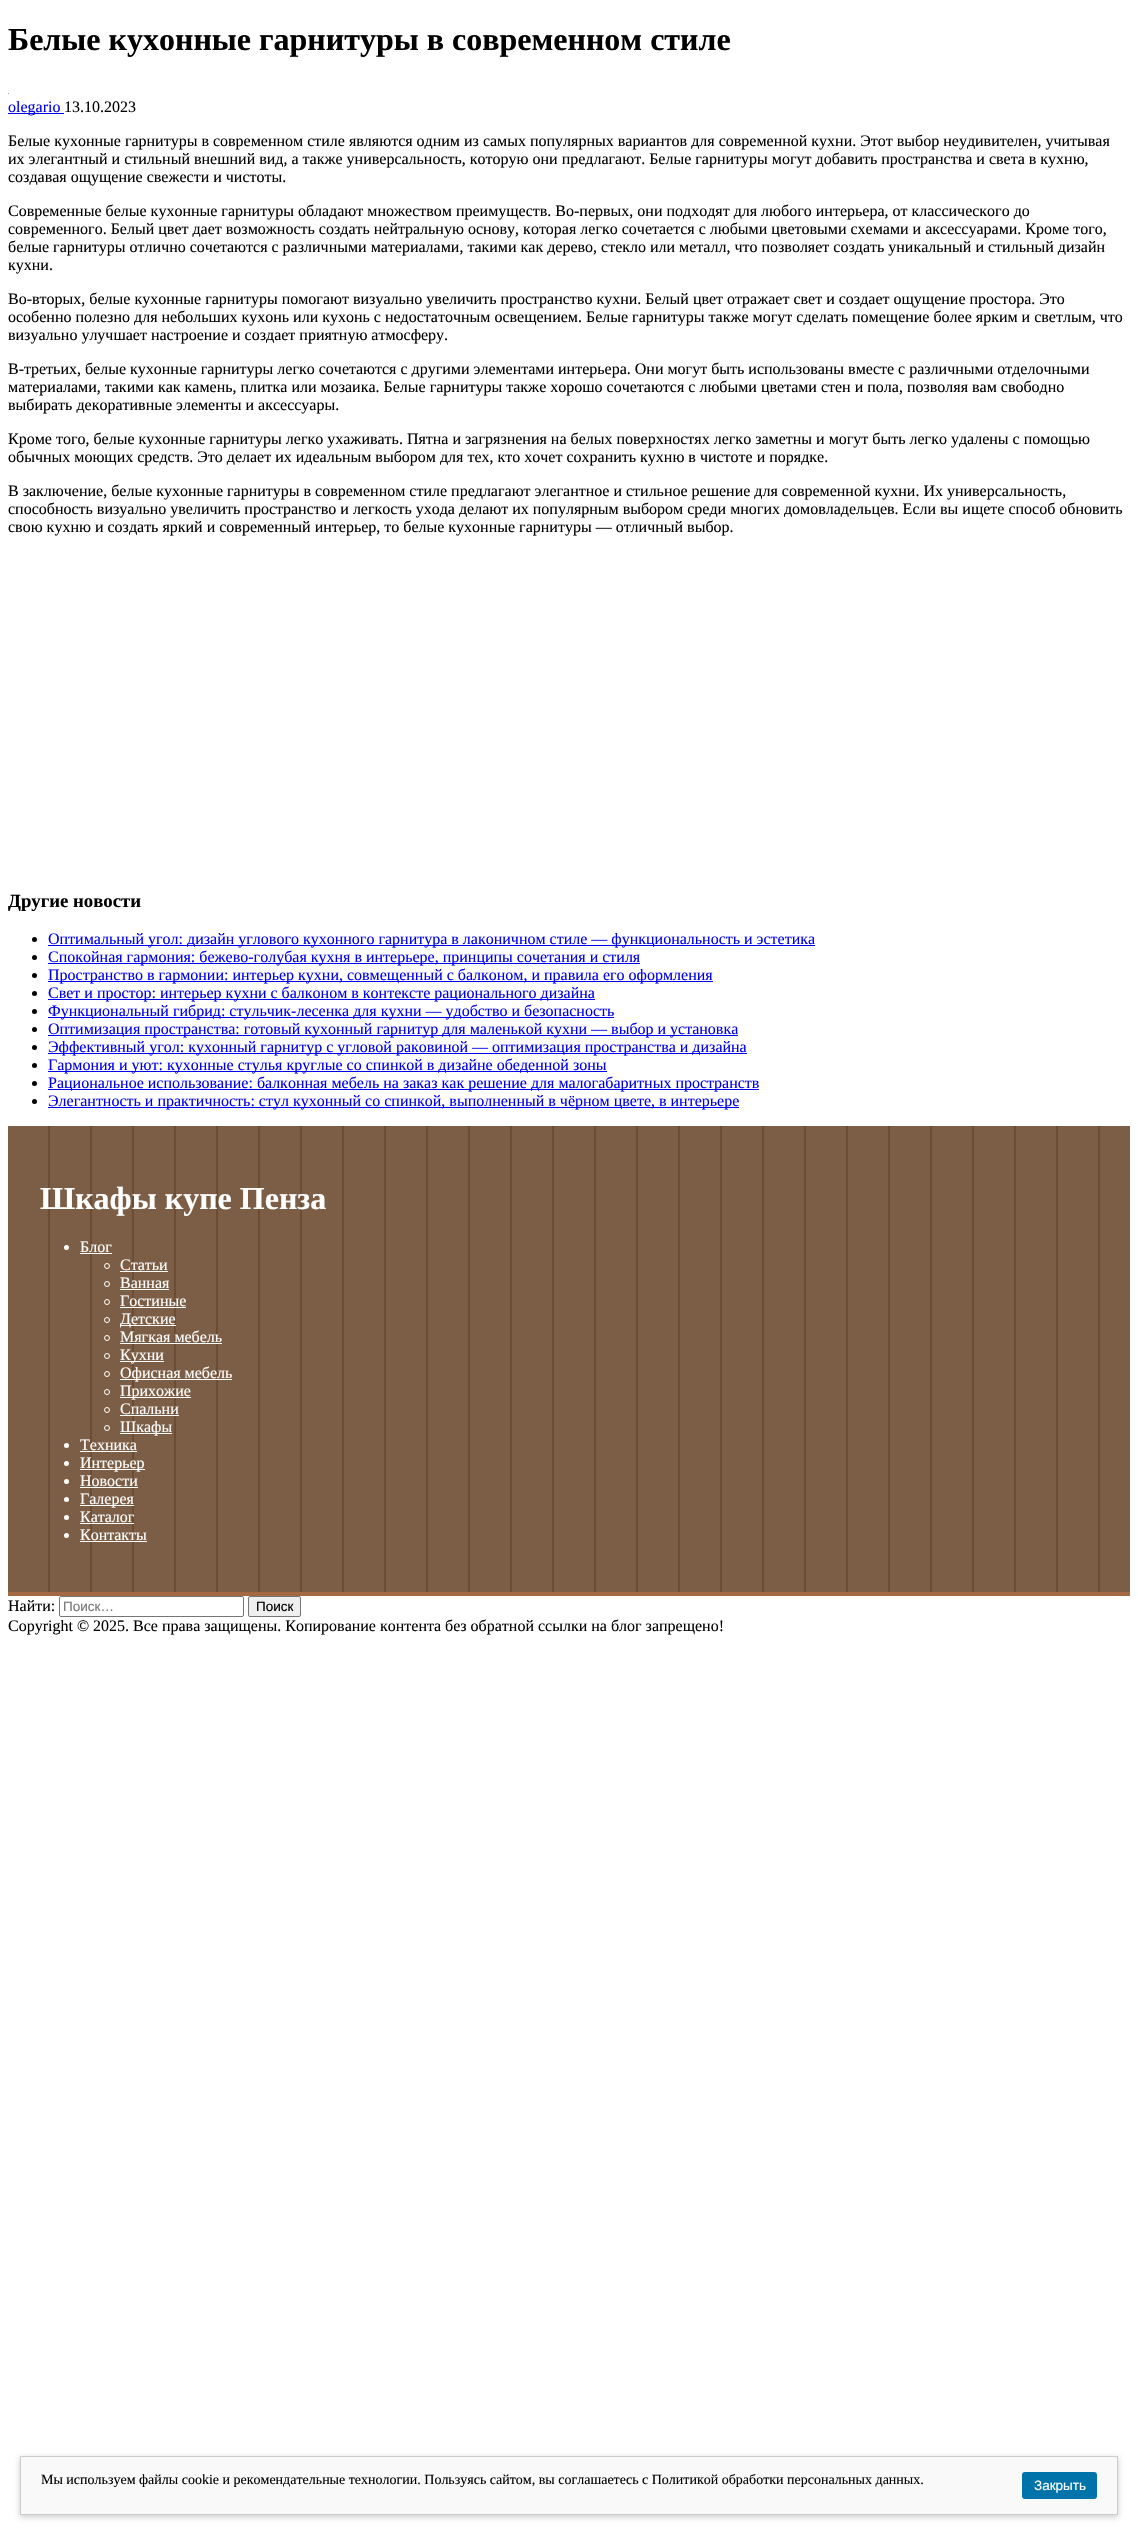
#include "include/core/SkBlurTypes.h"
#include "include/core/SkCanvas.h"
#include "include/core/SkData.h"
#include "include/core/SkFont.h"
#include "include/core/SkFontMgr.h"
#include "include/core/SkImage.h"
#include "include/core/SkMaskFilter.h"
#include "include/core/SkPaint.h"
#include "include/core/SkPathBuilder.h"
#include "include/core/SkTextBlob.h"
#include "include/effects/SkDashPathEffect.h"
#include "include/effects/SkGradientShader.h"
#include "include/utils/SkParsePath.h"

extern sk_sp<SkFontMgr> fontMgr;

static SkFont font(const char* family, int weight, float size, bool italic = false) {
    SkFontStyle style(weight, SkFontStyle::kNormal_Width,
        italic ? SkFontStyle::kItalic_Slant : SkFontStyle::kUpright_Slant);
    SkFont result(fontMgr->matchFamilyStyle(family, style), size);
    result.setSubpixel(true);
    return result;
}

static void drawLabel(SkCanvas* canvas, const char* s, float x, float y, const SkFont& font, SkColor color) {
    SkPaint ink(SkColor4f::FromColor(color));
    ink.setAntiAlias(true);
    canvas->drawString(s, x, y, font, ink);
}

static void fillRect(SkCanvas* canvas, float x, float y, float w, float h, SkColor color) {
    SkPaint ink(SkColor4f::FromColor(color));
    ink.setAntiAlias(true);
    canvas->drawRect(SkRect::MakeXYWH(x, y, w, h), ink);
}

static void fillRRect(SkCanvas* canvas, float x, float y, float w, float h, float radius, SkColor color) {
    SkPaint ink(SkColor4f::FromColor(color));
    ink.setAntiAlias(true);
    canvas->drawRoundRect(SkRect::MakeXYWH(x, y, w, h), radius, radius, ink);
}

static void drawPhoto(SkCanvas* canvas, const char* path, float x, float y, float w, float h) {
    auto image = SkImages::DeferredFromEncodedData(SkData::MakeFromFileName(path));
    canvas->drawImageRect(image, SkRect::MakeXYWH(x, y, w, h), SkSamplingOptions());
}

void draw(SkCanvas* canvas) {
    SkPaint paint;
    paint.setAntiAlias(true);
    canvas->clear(0xFFFFFFFF);
    SkFont font1 = font("Liberation Serif", 700, 32);
    drawLabel(canvas, "Белые кухонные гарнитуры в современном стиле", 8, 50, font1, 0xFF000000);
    fillRect(canvas, 8, 93, 1, 1, 0xFFA5A2A3);
    fillRect(canvas, 8, 113, 56, 1, 0xFF0000EE);
    SkFont font2 = font("Liberation Serif", 400, 16);
    drawLabel(canvas, "olegario", 8, 112, font2, 0xFF0000EE);
    drawLabel(canvas, "13.10.2023", 64, 112, font2, 0xFF000000);
    drawLabel(canvas, "Белые кухонные гарнитуры в современном стиле являются одним из самых популярных вариантов для современной кухни. Этот выбор неудивителен, учитывая", 8, 146, font2, 0xFF000000);
    drawLabel(canvas, "их элегантный и стильный внешний вид, а также универсальность, которую они предлагают. Белые гарнитуры могут добавить пространства и света в кухню,", 8, 164, font2, 0xFF000000);
    drawLabel(canvas, "создавая ощущение свежести и чистоты.", 8, 182, font2, 0xFF000000);
    drawLabel(canvas, "Современные белые кухонные гарнитуры обладают множеством преимуществ. Во-первых, они подходят для любого интерьера, от классического до", 8, 216, font2, 0xFF000000);
    drawLabel(canvas, "современного. Белый цвет дает возможность создать нейтральную основу, которая легко сочетается с любыми цветовыми схемами и аксессуарами. Кроме того,", 8, 234, font2, 0xFF000000);
    drawLabel(canvas, "белые гарнитуры отлично сочетаются с различными материалами, такими как дерево, стекло или металл, что позволяет создать уникальный и стильный дизайн", 8, 252, font2, 0xFF000000);
    drawLabel(canvas, "кухни.", 8, 270, font2, 0xFF000000);
    drawLabel(canvas, "Во-вторых, белые кухонные гарнитуры помогают визуально увеличить пространство кухни. Белый цвет отражает свет и создает ощущение простора. Это", 8, 304, font2, 0xFF000000);
    drawLabel(canvas, "особенно полезно для небольших кухонь или кухонь с недостаточным освещением. Белые гарнитуры также могут сделать помещение более ярким и светлым, что", 8, 322, font2, 0xFF000000);
    drawLabel(canvas, "визуально улучшает настроение и создает приятную атмосферу.", 8, 340, font2, 0xFF000000);
    drawLabel(canvas, "В-третьих, белые кухонные гарнитуры легко сочетаются с другими элементами интерьера. Они могут быть использованы вместе с различными отделочными", 8, 374, font2, 0xFF000000);
    drawLabel(canvas, "материалами, такими как камень, плитка или мозаика. Белые гарнитуры также хорошо сочетаются с любыми цветами стен и пола, позволяя вам свободно", 8, 392, font2, 0xFF000000);
    drawLabel(canvas, "выбирать декоративные элементы и аксессуары.", 8, 410, font2, 0xFF000000);
    drawLabel(canvas, "Кроме того, белые кухонные гарнитуры легко ухаживать. Пятна и загрязнения на белых поверхностях легко заметны и могут быть легко удалены с помощью", 8, 444, font2, 0xFF000000);
    drawLabel(canvas, "обычных моющих средств. Это делает их идеальным выбором для тех, кто хочет сохранить кухню в чистоте и порядке.", 8, 462, font2, 0xFF000000);
    drawLabel(canvas, "В заключение, белые кухонные гарнитуры в современном стиле предлагают элегантное и стильное решение для современной кухни. Их универсальность,", 8, 496, font2, 0xFF000000);
    drawLabel(canvas, "способность визуально увеличить пространство и легкость ухода делают их популярным выбором среди многих домовладельцев. Если вы ищете способ обновить", 8, 514, font2, 0xFF000000);
    drawLabel(canvas, "свою кухню и создать яркий и современный интерьер, то белые кухонные гарнитуры — отличный выбор.", 8, 532, font2, 0xFF000000);
    SkFont font3 = font("Liberation Serif", 700, 18.75f);
    drawLabel(canvas, "Другие новости", 8, 907, font3, 0xFF000000);
    paint.setColor(0xFF000000);
    canvas->drawCircle(34.5f, 939.5f, 2.5f, paint);
    fillRect(canvas, 48, 945, 767, 1, 0xFF0000EE);
    drawLabel(canvas, "Оптимальный угол: дизайн углового кухонного гарнитура в лаконичном стиле — функциональность и эстетика", 48, 944, font2, 0xFF0000EE);
    canvas->drawCircle(34.5f, 957.5f, 2.5f, paint);
    fillRect(canvas, 48, 963, 592, 1, 0xFF0000EE);
    drawLabel(canvas, "Спокойная гармония: бежево-голубая кухня в интерьере, принципы сочетания и стиля", 48, 962, font2, 0xFF0000EE);
    canvas->drawCircle(34.5f, 975.5f, 2.5f, paint);
    fillRect(canvas, 48, 981, 665, 1, 0xFF0000EE);
    drawLabel(canvas, "Пространство в гармонии: интерьер кухни, совмещенный с балконом, и правила его оформления", 48, 980, font2, 0xFF0000EE);
    canvas->drawCircle(34.5f, 993.5f, 2.5f, paint);
    fillRect(canvas, 48, 999, 547, 1, 0xFF0000EE);
    drawLabel(canvas, "Свет и простор: интерьер кухни с балконом в контексте рационального дизайна", 48, 998, font2, 0xFF0000EE);
    canvas->drawCircle(34.5f, 1011.5f, 2.5f, paint);
    fillRect(canvas, 48, 1017, 566, 1, 0xFF0000EE);
    drawLabel(canvas, "Функциональный гибрид: стульчик-лесенка для кухни — удобство и безопасность", 48, 1016, font2, 0xFF0000EE);
    canvas->drawCircle(34.5f, 1029.5f, 2.5f, paint);
    fillRect(canvas, 48, 1035, 690, 1, 0xFF0000EE);
    drawLabel(canvas, "Оптимизация пространства: готовый кухонный гарнитур для маленькой кухни — выбор и установка", 48, 1034, font2, 0xFF0000EE);
    canvas->drawCircle(34.5f, 1047.5f, 2.5f, paint);
    fillRect(canvas, 48, 1053, 699, 1, 0xFF0000EE);
    drawLabel(canvas, "Эффективный угол: кухонный гарнитур с угловой раковиной — оптимизация пространства и дизайна", 48, 1052, font2, 0xFF0000EE);
    canvas->drawCircle(34.5f, 1065.5f, 2.5f, paint);
    fillRect(canvas, 48, 1071, 559, 1, 0xFF0000EE);
    drawLabel(canvas, "Гармония и уют: кухонные стулья круглые со спинкой в дизайне обеденной зоны", 48, 1070, font2, 0xFF0000EE);
    canvas->drawCircle(34.5f, 1083.5f, 2.5f, paint);
    fillRect(canvas, 48, 1089, 711, 1, 0xFF0000EE);
    drawLabel(canvas, "Рациональное использование: балконная мебель на заказ как решение для малогабаритных пространств", 48, 1088, font2, 0xFF0000EE);
    canvas->drawCircle(34.5f, 1101.5f, 2.5f, paint);
    fillRect(canvas, 48, 1107, 691, 1, 0xFF0000EE);
    drawLabel(canvas, "Элегантность и практичность: стул кухонный со спинкой, выполненный в чёрном цвете, в интерьере", 48, 1106, font2, 0xFF0000EE);
    drawPhoto(canvas, "assets/img1.png", 8, 1126, 1122, 466);
    fillRect(canvas, 8, 1592, 1122, 4, 0xFFA46942);
    drawLabel(canvas, "Шкафы купе Пенза", 40, 1209, font1, 0xFFFFFFFF);
    paint.setColor(0xFFFFFFFF);
    canvas->drawCircle(66.5f, 1247.5f, 2.5f, paint);
    drawLabel(canvas, "Блог", 80, 1252, font2, 0xFFFFFFFF);
    fillRect(canvas, 80, 1253, 32, 1, 0xFFFFFFFF);
    paint.setStroke(true);
    paint.setStrokeWidth(1);
    canvas->drawCircle(107, 1266, 2.5f, paint);
    drawLabel(canvas, "Статьи", 120, 1270, font2, 0xFFFFFFFF);
    fillRect(canvas, 120, 1271, 48, 1, 0xFFFFFFFF);
    canvas->drawCircle(107, 1284, 2.5f, paint);
    drawLabel(canvas, "Ванная", 120, 1288, font2, 0xFFFFFFFF);
    fillRect(canvas, 120, 1289, 49, 1, 0xFFFFFFFF);
    canvas->drawCircle(107, 1302, 2.5f, paint);
    drawLabel(canvas, "Гостиные", 120, 1306, font2, 0xFFFFFFFF);
    fillRect(canvas, 120, 1307, 66, 1, 0xFFFFFFFF);
    canvas->drawCircle(107, 1320, 2.5f, paint);
    fillRect(canvas, 120, 1325, 56, 1, 0xFFFFFFFF);
    drawLabel(canvas, "Детские", 120, 1324, font2, 0xFFFFFFFF);
    canvas->drawCircle(107, 1338, 2.5f, paint);
    drawLabel(canvas, "Мягкая мебель", 120, 1342, font2, 0xFFFFFFFF);
    fillRect(canvas, 120, 1343, 102, 1, 0xFFFFFFFF);
    canvas->drawCircle(107, 1356, 2.5f, paint);
    fillRect(canvas, 120, 1361, 44, 1, 0xFFFFFFFF);
    drawLabel(canvas, "Кухни", 120, 1360, font2, 0xFFFFFFFF);
    canvas->drawCircle(107, 1374, 2.5f, paint);
    fillRect(canvas, 120, 1379, 112, 1, 0xFFFFFFFF);
    drawLabel(canvas, "Офисная мебель", 120, 1378, font2, 0xFFFFFFFF);
    canvas->drawCircle(107, 1392, 2.5f, paint);
    fillRect(canvas, 120, 1397, 71, 1, 0xFFFFFFFF);
    drawLabel(canvas, "Прихожие", 120, 1396, font2, 0xFFFFFFFF);
    canvas->drawCircle(107, 1410, 2.5f, paint);
    drawLabel(canvas, "Спальни", 120, 1414, font2, 0xFFFFFFFF);
    fillRect(canvas, 120, 1415, 59, 1, 0xFFFFFFFF);
    canvas->drawCircle(107, 1428, 2.5f, paint);
    fillRect(canvas, 120, 1433, 52, 1, 0xFFFFFFFF);
    drawLabel(canvas, "Шкафы", 120, 1432, font2, 0xFFFFFFFF);
    paint.setStroke(false);
    canvas->drawCircle(66.5f, 1445.5f, 2.5f, paint);
    drawLabel(canvas, "Техника", 80, 1450, font2, 0xFFFFFFFF);
    fillRect(canvas, 80, 1451, 57, 1, 0xFFFFFFFF);
    canvas->drawCircle(66.5f, 1463.5f, 2.5f, paint);
    fillRect(canvas, 80, 1469, 65, 1, 0xFFFFFFFF);
    drawLabel(canvas, "Интерьер", 80, 1468, font2, 0xFFFFFFFF);
    canvas->drawCircle(66.5f, 1481.5f, 2.5f, paint);
    drawLabel(canvas, "Новости", 80, 1486, font2, 0xFFFFFFFF);
    fillRect(canvas, 80, 1487, 58, 1, 0xFFFFFFFF);
    canvas->drawCircle(66.5f, 1499.5f, 2.5f, paint);
    fillRect(canvas, 80, 1505, 54, 1, 0xFFFFFFFF);
    drawLabel(canvas, "Галерея", 80, 1504, font2, 0xFFFFFFFF);
    canvas->drawCircle(66.5f, 1517.5f, 2.5f, paint);
    drawLabel(canvas, "Каталог", 80, 1522, font2, 0xFFFFFFFF);
    fillRect(canvas, 80, 1523, 54, 1, 0xFFFFFFFF);
    canvas->drawCircle(66.5f, 1535.5f, 2.5f, paint);
    drawLabel(canvas, "Контакты", 80, 1540, font2, 0xFFFFFFFF);
    fillRect(canvas, 80, 1541, 67, 1, 0xFFFFFFFF);
    drawLabel(canvas, "Найти:", 8, 1611, font2, 0xFF000000);
    paint.setStroke(true);
    paint.setColor(0xFF767676);
    canvas->drawRoundRect(SkRect::MakeXYWH(59.5f, 1596.5f, 184, 20), 1.5f, 1.5f, paint);
    SkFont font4 = font("Liberation Sans", 400, 13.5f);
    drawLabel(canvas, "Поиск…", 63, 1611, font4, 0xFF757575);
    paint.setStroke(false);
    paint.setColor(0xFFEFEFEF);
    canvas->drawRoundRect(SkRect::MakeXYWH(248.5f, 1596.5f, 52, 20), 1.5f, 1.5f, paint);
    paint.setStroke(true);
    paint.setColor(0xFF767676);
    canvas->drawRoundRect(SkRect::MakeXYWH(248.5f, 1596.5f, 52, 20), 1.5f, 1.5f, paint);
    drawLabel(canvas, "Поиск", 256, 1611, font4, 0xFF000000);
    drawLabel(canvas, "Copyright © 2025. Все права защищены. Копирование контента без обратной ссылки на блог запрещено!", 8, 1631, font2, 0xFF000000);
    paint.setStroke(false);
    paint.setColor(0x33000000);
    paint.setMaskFilter(SkMaskFilter::MakeBlur(kNormal_SkBlurStyle, 3));
    canvas->drawRect(SkRect::MakeXYWH(20, 2458, 1098, 59), paint);
    paint.setMaskFilter(nullptr);
    paint.setColor(0xFFF9F9F9);
    canvas->drawRect(SkRect::MakeXYWH(20.5f, 2456.5f, 1097, 58), paint);
    paint.setStroke(true);
    paint.setColor(0xFFCCCCCC);
    canvas->drawRect(SkRect::MakeXYWH(20.5f, 2456.5f, 1097, 58), paint);
    SkFont font5 = font("Liberation Serif", 400, 14);
    drawLabel(canvas, "Мы используем файлы cookie и рекомендательные технологии. Пользуясь сайтом, вы соглашаетесь с Политикой обработки персональных данных.", 41, 2484, font5, 0xFF000000);
    fillRRect(canvas, 1022, 2472, 75, 27, 3, 0xFF0073AA);
    drawLabel(canvas, "Закрыть", 1034, 2490, font4, 0xFFFFFFFF);
}
